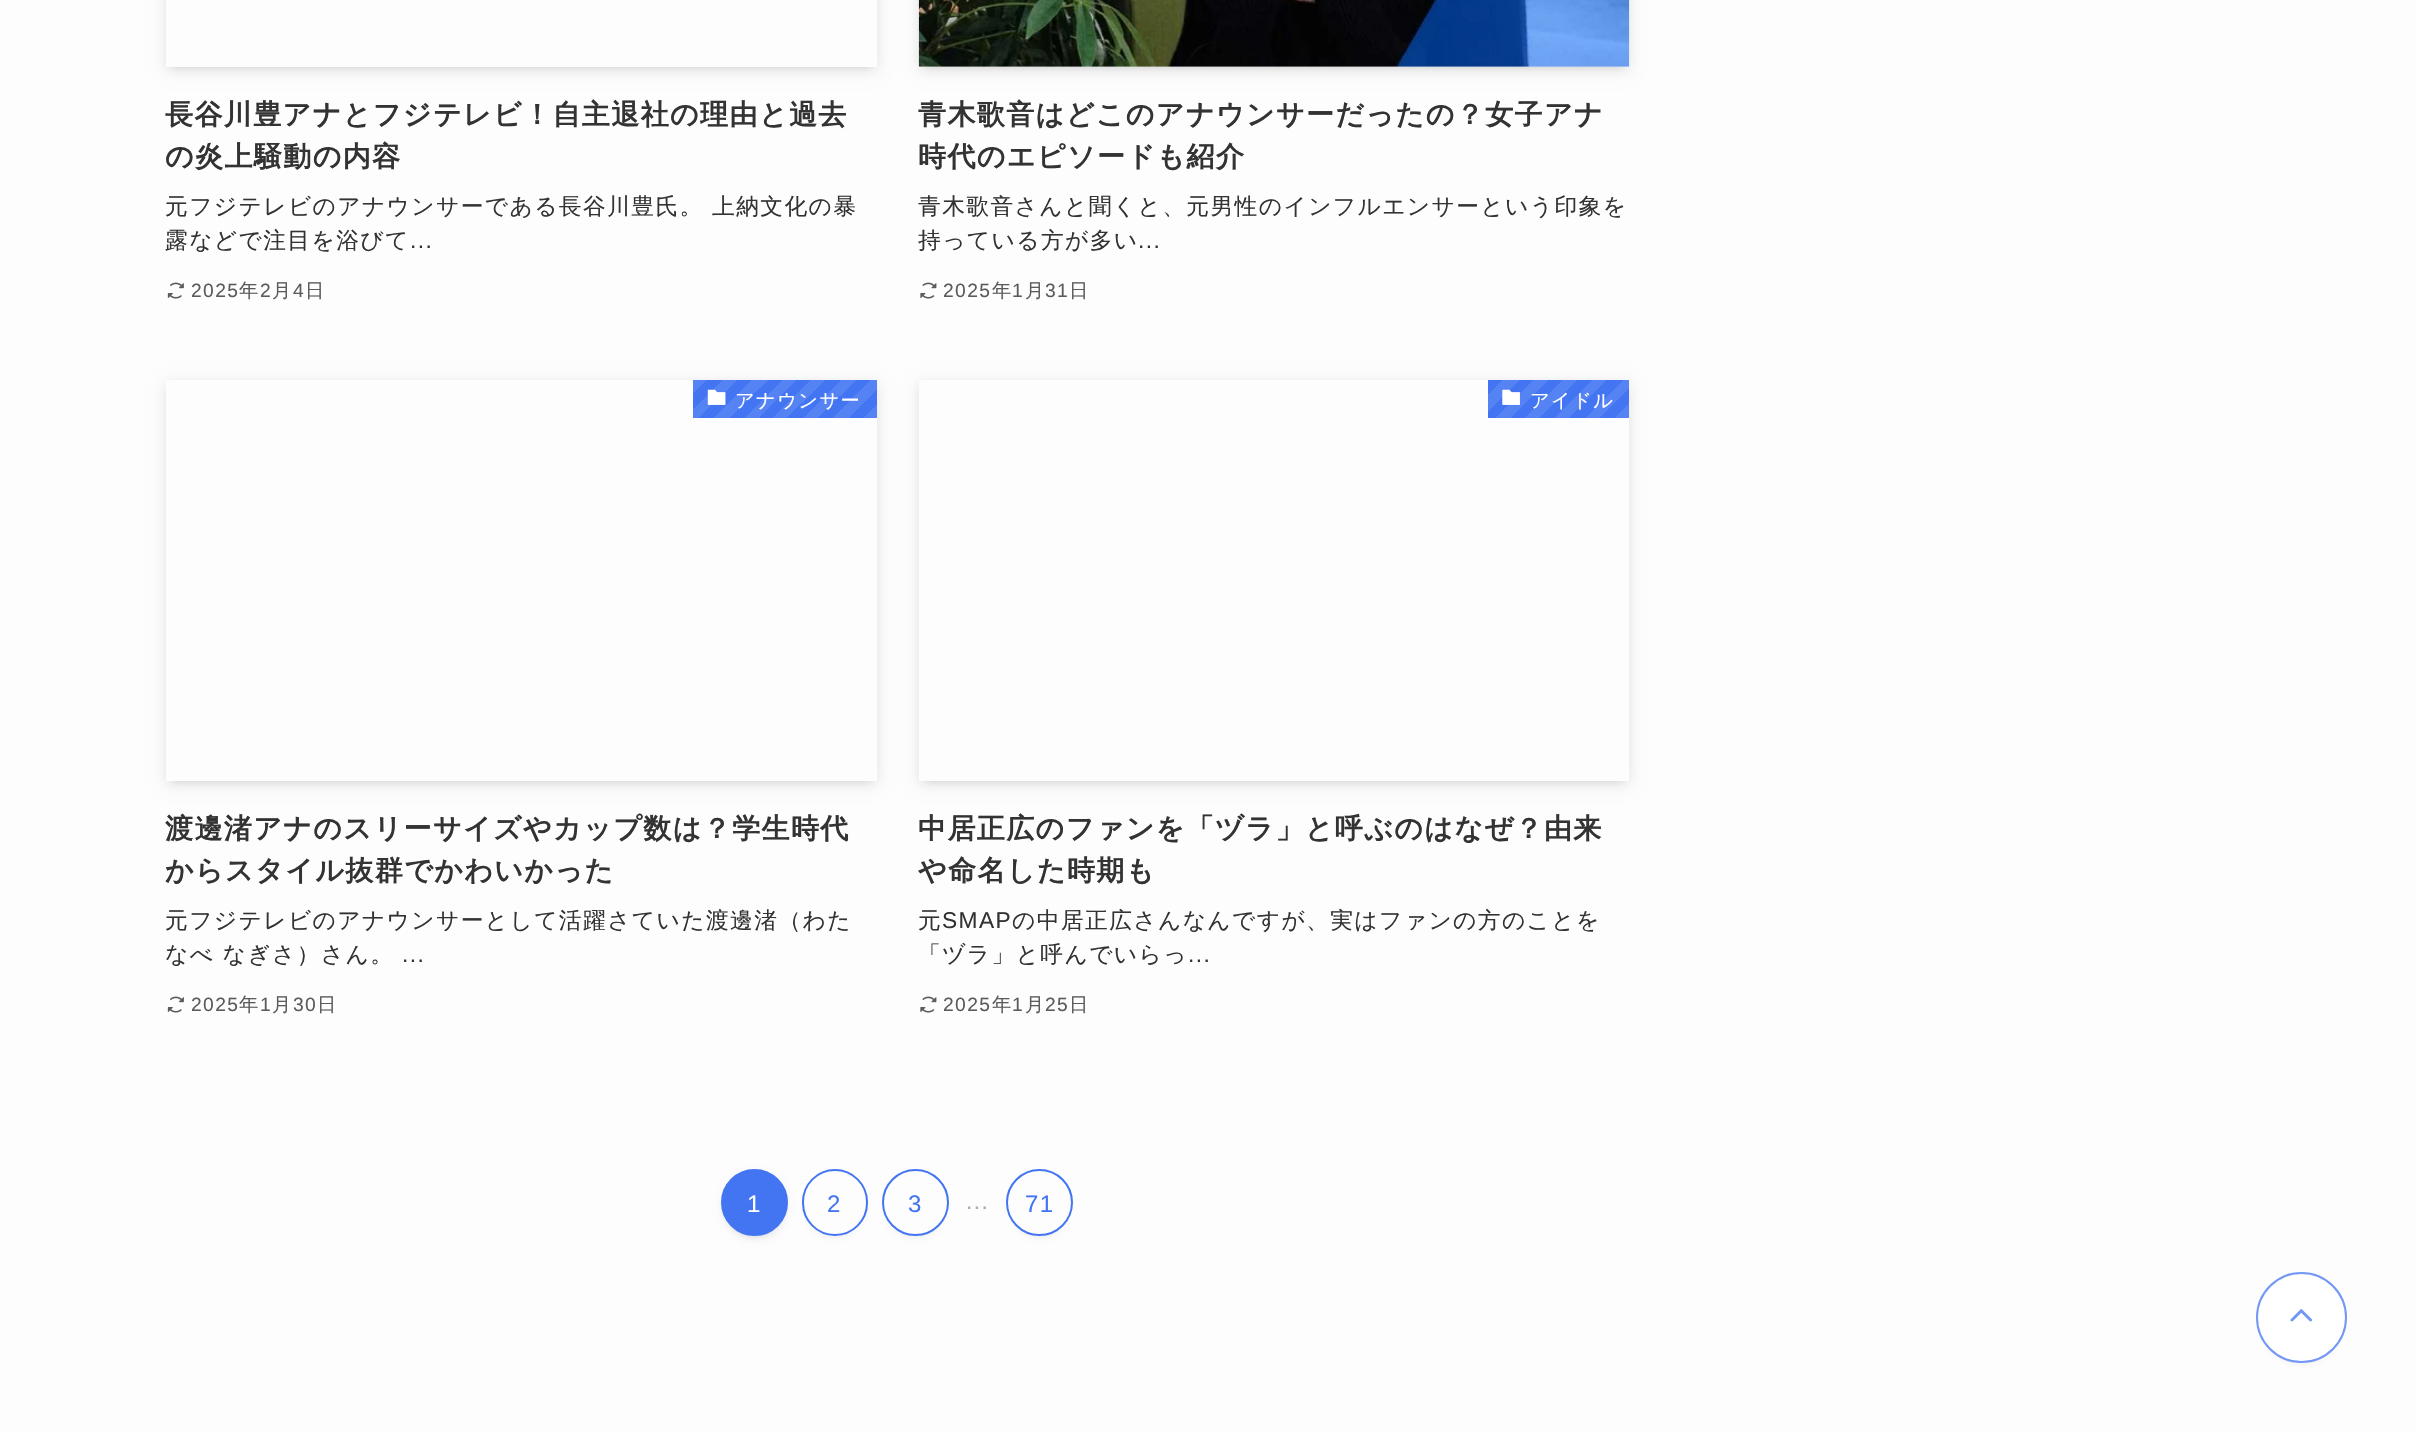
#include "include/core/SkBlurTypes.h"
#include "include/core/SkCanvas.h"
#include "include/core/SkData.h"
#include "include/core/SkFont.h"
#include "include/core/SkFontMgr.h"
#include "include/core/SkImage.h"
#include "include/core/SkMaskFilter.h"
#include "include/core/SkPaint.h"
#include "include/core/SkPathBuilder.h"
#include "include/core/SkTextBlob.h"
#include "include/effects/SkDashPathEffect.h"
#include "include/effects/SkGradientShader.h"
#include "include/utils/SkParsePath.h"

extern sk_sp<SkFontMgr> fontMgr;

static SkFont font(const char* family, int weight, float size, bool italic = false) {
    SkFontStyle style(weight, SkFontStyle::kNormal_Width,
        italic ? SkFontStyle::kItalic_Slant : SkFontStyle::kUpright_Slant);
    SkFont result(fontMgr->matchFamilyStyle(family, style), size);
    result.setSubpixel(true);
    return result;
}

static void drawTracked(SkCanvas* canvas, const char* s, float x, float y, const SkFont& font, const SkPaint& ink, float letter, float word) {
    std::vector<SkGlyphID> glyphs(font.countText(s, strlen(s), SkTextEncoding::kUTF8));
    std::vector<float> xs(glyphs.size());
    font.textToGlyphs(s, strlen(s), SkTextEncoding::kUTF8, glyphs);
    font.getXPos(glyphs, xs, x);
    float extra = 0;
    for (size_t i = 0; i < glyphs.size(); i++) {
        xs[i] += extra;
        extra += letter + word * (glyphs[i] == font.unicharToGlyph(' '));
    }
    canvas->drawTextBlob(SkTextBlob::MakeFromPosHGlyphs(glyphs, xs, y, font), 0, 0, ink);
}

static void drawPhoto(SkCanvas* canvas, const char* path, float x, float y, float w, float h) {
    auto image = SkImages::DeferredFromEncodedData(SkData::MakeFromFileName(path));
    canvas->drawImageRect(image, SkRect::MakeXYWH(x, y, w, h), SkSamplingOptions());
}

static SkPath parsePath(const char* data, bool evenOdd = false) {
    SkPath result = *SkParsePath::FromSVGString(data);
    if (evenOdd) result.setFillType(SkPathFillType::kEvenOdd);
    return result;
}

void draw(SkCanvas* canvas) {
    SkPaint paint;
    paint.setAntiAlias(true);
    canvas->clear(0xFFFDFDFD);
    canvas->save();
    canvas->clipPath(parsePath("M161 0H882V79H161ZM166-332H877V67H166Z", true), true);
    paint.setColor(0x1A000000);
    paint.setMaskFilter(SkMaskFilter::MakeBlur(kNormal_SkBlurStyle, 3.5f));
    canvas->drawRect(SkRect::MakeXYWH(173, -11, 697, 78), paint);
    paint.setMaskFilter(nullptr);
    canvas->restore();
    canvas->save();
    canvas->clipPath(parsePath("M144 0H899V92H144ZM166-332H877V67H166Z", true), true);
    paint.setMaskFilter(SkMaskFilter::MakeBlur(kNormal_SkBlurStyle, 7));
    canvas->drawRect(SkRect::MakeXYWH(166, -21, 711, 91), paint);
    paint.setMaskFilter(nullptr);
    canvas->restore();
    SkFont font1 = font("WenQuanYi Zen Hei", 700, 28);
    paint.setColor(0xFF333333);
    drawTracked(canvas, "長谷川豊アナとフジテレビ！自主退社の理由と過去", 165, 124, font1, paint, 1.4f, 0);
    drawTracked(canvas, "の炎上騒動の内容", 165, 166, font1, paint, 1.4f, 0);
    SkFont font2 = font("WenQuanYi Zen Hei", 500, 22.75f);
    drawTracked(canvas, "元フジテレビのアナウンサーである長谷川豊氏。 上納文化の暴", 165, 214, font2, paint, 1.4f, 0);
    drawTracked(canvas, "露などで注目を浴びて", 165, 248, font2, paint, 1.4f, 0);
    SkFont font3 = font("Liberation Sans", 400, 22.75f);
    drawTracked(canvas, "...", 410, 248, font3, paint, 1.4f, 0);
    drawPhoto(canvas, "assets/img1.png", 167, 282, 17, 17);
    SkFont font4 = font("Liberation Sans", 400, 19.25f);
    paint.setColor(0xFF5B5B5B);
    drawTracked(canvas, "2025", 191, 297, font4, paint, 1.4f, 0);
    SkFont font5 = font("WenQuanYi Zen Hei", 500, 19.25f);
    drawTracked(canvas, "年", 239, 297, font5, paint, 1.4f, 0);
    drawTracked(canvas, "2", 260, 297, font4, paint, 1.4f, 0);
    drawTracked(canvas, "月", 272, 297, font5, paint, 1.4f, 0);
    drawTracked(canvas, "4", 293, 297, font4, paint, 1.4f, 0);
    drawTracked(canvas, "日", 305, 297, font5, paint, 1.4f, 0);
    paint.setColor(0x1A000000);
    paint.setMaskFilter(SkMaskFilter::MakeBlur(kNormal_SkBlurStyle, 3.5f));
    canvas->drawRect(SkRect::MakeXYWH(926, -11, 696, 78), paint);
    paint.setMaskFilter(nullptr);
    paint.setMaskFilter(SkMaskFilter::MakeBlur(kNormal_SkBlurStyle, 7));
    canvas->drawRect(SkRect::MakeXYWH(919, -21, 710, 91), paint);
    paint.setMaskFilter(nullptr);
    drawPhoto(canvas, "assets/img2.png", 918, 0, 712, 67);
    paint.setColor(0xFF333333);
    drawTracked(canvas, "青木歌音はどこのアナウンサーだったの？女子アナ", 918, 124, font1, paint, 1.4f, 0);
    drawTracked(canvas, "時代のエピソードも紹介", 918, 166, font1, paint, 1.4f, 0);
    drawTracked(canvas, "青木歌音さんと聞くと、元男性のインフルエンサーという印象を", 918, 214, font2, paint, 1.4f, 0);
    drawTracked(canvas, "持っている方が多い", 918, 248, font2, paint, 1.4f, 0);
    drawTracked(canvas, "...", 1138, 248, font3, paint, 1.4f, 0);
    drawPhoto(canvas, "assets/img3.png", 920, 282, 17, 17);
    paint.setColor(0xFF5B5B5B);
    drawTracked(canvas, "2025", 943, 297, font4, paint, 1.4f, 0);
    drawTracked(canvas, "年", 992, 297, font5, paint, 1.4f, 0);
    drawTracked(canvas, "1", 1012, 297, font4, paint, 1.4f, 0);
    drawTracked(canvas, "月", 1025, 297, font5, paint, 1.4f, 0);
    drawTracked(canvas, "31", 1045, 297, font4, paint, 1.4f, 0);
    drawTracked(canvas, "日", 1069, 297, font5, paint, 1.4f, 0);
    canvas->save();
    canvas->clipPath(parsePath("M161 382H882V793H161ZM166 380H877V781H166Z", true), true);
    paint.setColor(0x1A000000);
    paint.setMaskFilter(SkMaskFilter::MakeBlur(kNormal_SkBlurStyle, 3.5f));
    canvas->drawRect(SkRect::MakeXYWH(173, 394, 697, 387), paint);
    paint.setMaskFilter(nullptr);
    canvas->restore();
    canvas->save();
    canvas->clipPath(parsePath("M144 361H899V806H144ZM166 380H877V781H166Z", true), true);
    paint.setMaskFilter(SkMaskFilter::MakeBlur(kNormal_SkBlurStyle, 7));
    canvas->drawRect(SkRect::MakeXYWH(166, 383, 711, 401), paint);
    paint.setMaskFilter(nullptr);
    canvas->restore();
    {
        const SkColor colors[] = {0xFF5683F3, 0xFF5683F3, 0xFF4375F2, 0xFF4375F2, 0xFF5683F3, 0xFF5683F3, 0xFF4375F2, 0xFF4375F2, 0xFF5683F3, 0xFF5683F3, 0xFF4375F2, 0xFF4375F2, 0xFF5683F3, 0xFF5683F3, 0xFF4375F2, 0xFF4375F2, 0xFF5683F3, 0xFF5683F3, 0xFF4375F2, 0xFF4375F2, 0xFF5683F3, 0xFF5683F3, 0xFF4375F2, 0xFF4375F2, 0xFF5683F3, 0xFF5683F3, 0xFF4375F2, 0xFF4375F2, 0xFF5683F3, 0xFF5683F3, 0xFF4375F2, 0xFF4375F2};
        const float stops[] = {0, 0.06f, 0.06f, 0.12f, 0.12f, 0.19f, 0.19f, 0.25f, 0.25f, 0.31f, 0.31f, 0.38f, 0.38f, 0.44f, 0.44f, 0.5f, 0.5f, 0.56f, 0.56f, 0.62f, 0.62f, 0.69f, 0.69f, 0.75f, 0.75f, 0.81f, 0.81f, 0.88f, 0.88f, 0.94f, 0.94f, 1};
        const SkPoint ends[] = {{840, 455}, {722, 336}};
        paint.setShader(SkGradientShader::MakeLinear(ends, colors, stops, 32, SkTileMode::kClamp));
        paint.setAlpha(255);
    }
    canvas->drawRect(SkRect::MakeXYWH(693, 380, 184, 38), paint);
    drawPhoto(canvas, "assets/img4.png", 707, 389, 19, 16);
    paint.setShader(nullptr);
    paint.setColor(0xFFFFFFFF);
    drawTracked(canvas, "アナウンサー", 735, 407, font5, paint, 1.4f, 0);
    paint.setColor(0xFF333333);
    drawTracked(canvas, "渡邊渚アナのスリーサイズやカップ数は？学生時代", 165, 838, font1, paint, 1.4f, 0);
    drawTracked(canvas, "からスタイル抜群でかわいかった", 165, 880, font1, paint, 1.4f, 0);
    drawTracked(canvas, "元フジテレビのアナウンサーとして活躍さていた渡邊渚（わた", 165, 928, font2, paint, 1.4f, 0);
    drawTracked(canvas, "なべ なぎさ）さん。", 165, 962, font2, paint, 1.4f, 0);
    drawTracked(canvas, "...", 402, 962, font3, paint, 1.4f, 0);
    drawPhoto(canvas, "assets/img1.png", 167, 996, 17, 17);
    paint.setColor(0xFF5B5B5B);
    drawTracked(canvas, "2025", 191, 1011, font4, paint, 1.4f, 0);
    drawTracked(canvas, "年", 239, 1011, font5, paint, 1.4f, 0);
    drawTracked(canvas, "1", 260, 1011, font4, paint, 1.4f, 0);
    drawTracked(canvas, "月", 272, 1011, font5, paint, 1.4f, 0);
    drawTracked(canvas, "30", 293, 1011, font4, paint, 1.4f, 0);
    drawTracked(canvas, "日", 317, 1011, font5, paint, 1.4f, 0);
    canvas->save();
    canvas->clipPath(parsePath("M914 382H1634V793H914ZM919 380H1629V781H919Z", true), true);
    paint.setColor(0x1A000000);
    paint.setMaskFilter(SkMaskFilter::MakeBlur(kNormal_SkBlurStyle, 3.5f));
    canvas->drawRect(SkRect::MakeXYWH(926, 394, 696, 387), paint);
    paint.setMaskFilter(nullptr);
    canvas->restore();
    canvas->save();
    canvas->clipPath(parsePath("M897 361H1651V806H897ZM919 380H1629V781H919Z", true), true);
    paint.setMaskFilter(SkMaskFilter::MakeBlur(kNormal_SkBlurStyle, 7));
    canvas->drawRect(SkRect::MakeXYWH(919, 383, 710, 401), paint);
    paint.setMaskFilter(nullptr);
    canvas->restore();
    {
        const SkColor colors[] = {0xFF5683F3, 0xFF5683F3, 0xFF4375F2, 0xFF4375F2, 0xFF5683F3, 0xFF5683F3, 0xFF4375F2, 0xFF4375F2, 0xFF5683F3, 0xFF5683F3, 0xFF4375F2, 0xFF4375F2, 0xFF5683F3, 0xFF5683F3, 0xFF4375F2, 0xFF4375F2, 0xFF5683F3, 0xFF5683F3, 0xFF4375F2, 0xFF4375F2, 0xFF5683F3, 0xFF5683F3, 0xFF4375F2, 0xFF4375F2, 0xFF5683F3, 0xFF5683F3, 0xFF4375F2, 0xFF4375F2};
        const float stops[] = {0, 0.07f, 0.07f, 0.14f, 0.14f, 0.21f, 0.21f, 0.29f, 0.29f, 0.36f, 0.36f, 0.43f, 0.43f, 0.5f, 0.5f, 0.57f, 0.57f, 0.64f, 0.64f, 0.71f, 0.71f, 0.79f, 0.79f, 0.86f, 0.86f, 0.93f, 0.93f, 1};
        const SkPoint ends[] = {{1603, 444}, {1499, 340}};
        paint.setShader(SkGradientShader::MakeLinear(ends, colors, stops, 28, SkTileMode::kClamp));
        paint.setAlpha(255);
    }
    canvas->drawRect(SkRect::MakeXYWH(1488, 380, 141, 38), paint);
    drawPhoto(canvas, "assets/img5.png", 1502, 389, 18, 16);
    paint.setShader(nullptr);
    paint.setColor(0xFFFFFFFF);
    drawTracked(canvas, "アイドル", 1530, 407, font5, paint, 1.4f, 0);
    paint.setColor(0xFF333333);
    drawTracked(canvas, "中居正広のファンを「ヅラ」と呼ぶのはなぜ？由来", 918, 838, font1, paint, 1.4f, 0);
    drawTracked(canvas, "や命名した時期も", 918, 880, font1, paint, 1.4f, 0);
    drawTracked(canvas, "元", 918, 928, font2, paint, 1.4f, 0);
    drawTracked(canvas, "SMAP", 942, 928, font3, paint, 1.4f, 0);
    drawTracked(canvas, "の中居正広さんなんですが、実はファンの方のことを", 1012, 928, font2, paint, 1.4f, 0);
    drawTracked(canvas, "「ヅラ」と呼んでいらっ", 918, 962, font2, paint, 1.4f, 0);
    drawTracked(canvas, "...", 1188, 962, font3, paint, 1.4f, 0);
    drawPhoto(canvas, "assets/img3.png", 920, 996, 17, 17);
    paint.setColor(0xFF5B5B5B);
    drawTracked(canvas, "2025", 943, 1011, font4, paint, 1.4f, 0);
    drawTracked(canvas, "年", 992, 1011, font5, paint, 1.4f, 0);
    drawTracked(canvas, "1", 1012, 1011, font4, paint, 1.4f, 0);
    drawTracked(canvas, "月", 1025, 1011, font5, paint, 1.4f, 0);
    drawTracked(canvas, "25", 1045, 1011, font4, paint, 1.4f, 0);
    drawTracked(canvas, "日", 1069, 1011, font5, paint, 1.4f, 0);
    paint.setColor(0x1A000000);
    paint.setMaskFilter(SkMaskFilter::MakeBlur(kNormal_SkBlurStyle, 3.5f));
    canvas->drawRoundRect(SkRect::MakeXYWH(728, 1183, 53, 53), 26.5f, 26.5f, paint);
    paint.setMaskFilter(nullptr);
    paint.setColor(0x0D000000);
    paint.setMaskFilter(SkMaskFilter::MakeBlur(kNormal_SkBlurStyle, 3.5f));
    canvas->drawRoundRect(SkRect::MakeXYWH(721, 1173, 67, 66), 33, 33, paint);
    paint.setMaskFilter(nullptr);
    paint.setColor(0xFF4375F2);
    canvas->drawCircle(754.5f, 1202.5f, 32.5f, paint);
    paint.setStroke(true);
    paint.setStrokeWidth(2);
    canvas->drawCircle(754.5f, 1202.5f, 32.5f, paint);
    SkFont font6 = font("Liberation Sans", 400, 24);
    paint.setStroke(false);
    paint.setColor(0xFFFFFFFF);
    drawTracked(canvas, "1", 747, 1212, font6, paint, 1.4f, 0);
    canvas->save();
    canvas->clipPath(parsePath("M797 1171H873V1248H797ZM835 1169C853 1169 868 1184 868 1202V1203C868 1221 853 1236 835 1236C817 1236 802 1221 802 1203V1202C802 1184 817 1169 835 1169Z", true), true);
    paint.setColor(0x1A000000);
    paint.setMaskFilter(SkMaskFilter::MakeBlur(kNormal_SkBlurStyle, 3.5f));
    canvas->drawRoundRect(SkRect::MakeXYWH(809, 1183, 52, 53), 26, 26, paint);
    paint.setMaskFilter(nullptr);
    canvas->restore();
    paint.setStroke(true);
    paint.setColor(0xFF4375F2);
    canvas->drawRoundRect(SkRect::MakeXYWH(803, 1170, 64, 65), 32, 32, paint);
    paint.setStroke(false);
    drawTracked(canvas, "2", 827, 1212, font6, paint, 1.4f, 0);
    canvas->save();
    canvas->clipPath(parsePath("M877 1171H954V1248H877ZM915.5 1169C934 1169 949 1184 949 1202.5C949 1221 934 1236 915.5 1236C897 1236 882 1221 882 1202.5C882 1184 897 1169 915.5 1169Z", true), true);
    paint.setColor(0x1A000000);
    paint.setMaskFilter(SkMaskFilter::MakeBlur(kNormal_SkBlurStyle, 3.5f));
    canvas->drawRoundRect(SkRect::MakeXYWH(889, 1183, 53, 53), 26.5f, 26.5f, paint);
    paint.setMaskFilter(nullptr);
    canvas->restore();
    paint.setStroke(true);
    paint.setColor(0xFF4375F2);
    canvas->drawCircle(915.5f, 1202.5f, 32.5f, paint);
    paint.setStroke(false);
    drawTracked(canvas, "3", 908, 1212, font6, paint, 1.4f, 0);
    paint.setColor(0xFFAAAAAA);
    drawTracked(canvas, "...", 966, 1209, font3, paint, 1.4f, 0);
    canvas->save();
    canvas->clipPath(parsePath("M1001 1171H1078V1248H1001ZM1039.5 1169C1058 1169 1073 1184 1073 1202.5C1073 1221 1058 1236 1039.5 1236C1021 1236 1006 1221 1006 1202.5C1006 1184 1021 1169 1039.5 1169Z", true), true);
    paint.setColor(0x1A000000);
    paint.setMaskFilter(SkMaskFilter::MakeBlur(kNormal_SkBlurStyle, 3.5f));
    canvas->drawRoundRect(SkRect::MakeXYWH(1013, 1183, 53, 53), 26.5f, 26.5f, paint);
    paint.setMaskFilter(nullptr);
    canvas->restore();
    paint.setStroke(true);
    paint.setColor(0xFF4375F2);
    canvas->drawCircle(1039.5f, 1202.5f, 32.5f, paint);
    paint.setStroke(false);
    drawTracked(canvas, "71", 1025, 1212, font6, paint, 1.4f, 0);
    paint.setColor(0x1A3F3F3F);
    paint.setMaskFilter(SkMaskFilter::MakeBlur(kNormal_SkBlurStyle, 3.5f));
    canvas->drawRoundRect(SkRect::MakeXYWH(2263, 1286, 77, 77), 38.5f, 38.5f, paint);
    paint.setMaskFilter(nullptr);
    paint.setColor(0xFFFFFFFF);
    canvas->drawCircle(2301.5f, 1317.5f, 44.5f, paint);
    paint.setStroke(true);
    paint.setColor(0xFF7297F5);
    canvas->drawCircle(2301.5f, 1317.5f, 44.5f, paint);
    drawPhoto(canvas, "assets/img6.png", 2290, 1309, 22, 13);
}
